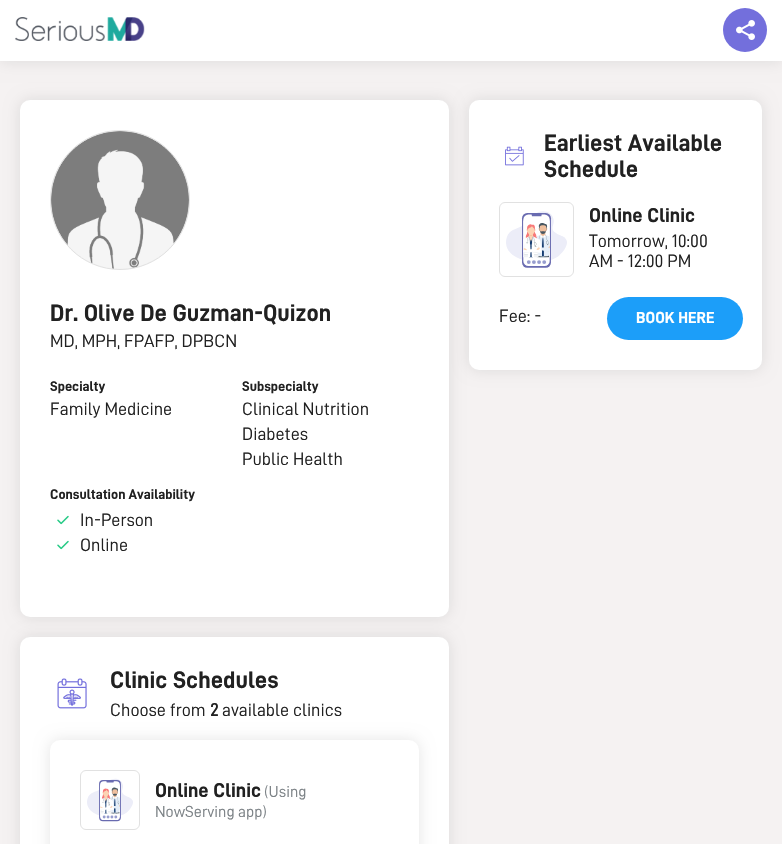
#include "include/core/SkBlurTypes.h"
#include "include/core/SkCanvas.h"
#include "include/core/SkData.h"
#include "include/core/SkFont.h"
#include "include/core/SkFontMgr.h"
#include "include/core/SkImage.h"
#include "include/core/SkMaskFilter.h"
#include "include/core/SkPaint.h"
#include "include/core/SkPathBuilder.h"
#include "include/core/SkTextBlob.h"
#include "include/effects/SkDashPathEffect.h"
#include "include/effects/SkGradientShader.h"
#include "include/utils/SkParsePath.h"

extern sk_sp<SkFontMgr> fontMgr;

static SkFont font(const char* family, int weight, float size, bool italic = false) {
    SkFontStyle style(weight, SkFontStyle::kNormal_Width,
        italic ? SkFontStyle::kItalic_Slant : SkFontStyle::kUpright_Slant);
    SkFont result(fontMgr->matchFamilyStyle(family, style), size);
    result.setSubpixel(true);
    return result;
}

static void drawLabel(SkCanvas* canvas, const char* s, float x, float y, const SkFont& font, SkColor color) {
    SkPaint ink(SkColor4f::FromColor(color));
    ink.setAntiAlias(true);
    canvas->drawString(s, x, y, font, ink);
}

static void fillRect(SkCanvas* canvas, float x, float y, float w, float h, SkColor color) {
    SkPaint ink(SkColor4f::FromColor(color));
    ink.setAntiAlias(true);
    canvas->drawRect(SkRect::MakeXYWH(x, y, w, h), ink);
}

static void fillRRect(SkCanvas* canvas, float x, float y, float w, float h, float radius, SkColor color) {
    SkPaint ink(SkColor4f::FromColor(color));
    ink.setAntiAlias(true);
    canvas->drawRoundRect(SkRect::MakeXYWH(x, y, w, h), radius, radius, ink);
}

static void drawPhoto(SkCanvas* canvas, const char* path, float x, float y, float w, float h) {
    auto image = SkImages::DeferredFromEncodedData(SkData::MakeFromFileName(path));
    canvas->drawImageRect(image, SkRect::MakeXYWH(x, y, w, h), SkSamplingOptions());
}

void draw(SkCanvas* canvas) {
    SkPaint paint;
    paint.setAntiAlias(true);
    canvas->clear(0xFFF5F2F2);
    paint.setColor(0x1A000000);
    paint.setMaskFilter(SkMaskFilter::MakeBlur(kNormal_SkBlurStyle, 7.5f));
    canvas->drawRect(SkRect::MakeXYWH(0, 0, 782, 61), paint);
    paint.setMaskFilter(nullptr);
    fillRect(canvas, 0, 0, 782, 61, 0xFFFFFFFF);
    drawPhoto(canvas, "assets/img1.png", 15, 17, 130, 24);
    paint.setColor(0xFF736FDC);
    canvas->drawCircle(745, 30, 22, paint);
    drawPhoto(canvas, "assets/img2.png", 736, 20, 19, 20);
    paint.setColor(0x1A000000);
    paint.setMaskFilter(SkMaskFilter::MakeBlur(kNormal_SkBlurStyle, 7.5f));
    canvas->drawRoundRect(SkRect::MakeXYWH(20, 100, 429, 517), 10, 10, paint);
    paint.setMaskFilter(nullptr);
    fillRRect(canvas, 20, 100, 429, 517, 10, 0xFFFFFFFF);
    paint.setMaskFilter(SkMaskFilter::MakeBlur(kNormal_SkBlurStyle, 7.5f));
    canvas->drawRoundRect(SkRect::MakeXYWH(469, 100, 293, 270), 10, 10, paint);
    paint.setMaskFilter(nullptr);
    fillRRect(canvas, 469, 100, 293, 270, 10, 0xFFFFFFFF);
    drawPhoto(canvas, "assets/img3.png", 505, 146, 19, 20);
    SkFont font1 = font("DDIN", 700, 24);
    drawLabel(canvas, "Earliest Available", 544, 151, font1, 0xFF212121);
    drawLabel(canvas, "Schedule", 544, 177, font1, 0xFF212121);
    paint.setStroke(true);
    paint.setStrokeWidth(1);
    paint.setColor(0xFFE1E1E1);
    canvas->drawRoundRect(SkRect::MakeXYWH(499.5f, 202.5f, 74, 74), 5.5f, 5.5f, paint);
    drawPhoto(canvas, "assets/img4.png", 506, 211, 61, 57);
    SkFont font2 = font("DDIN", 700, 20);
    drawLabel(canvas, "Online Clinic", 589, 222, font2, 0xFF212121);
    SkFont font3 = font("DDIN", 400, 18);
    drawLabel(canvas, "Tomorrow, 10:00", 589, 247, font3, 0xFF212121);
    drawLabel(canvas, "AM - 12:00 PM", 589, 267, font3, 0xFF212121);
    drawLabel(canvas, "Fee: -", 499, 322, font3, 0xFF212121);
    fillRRect(canvas, 607, 297, 136, 43, 21.5f, 0xFF1C9EF9);
    SkFont font4 = font("DDIN", 700, 16);
    drawLabel(canvas, "BOOK HERE", 636, 323, font4, 0xFFFFFFFF);
    drawPhoto(canvas, "assets/img5.png", 51, 131, 138, 138);
    canvas->drawCircle(120, 200, 69.5f, paint);
    drawLabel(canvas, "Dr. Olive De Guzman-Quizon", 50, 321, font1, 0xFF212121);
    drawLabel(canvas, "MD, MPH, FPAFP, DPBCN", 50, 347, font3, 0xFF212121);
    SkFont font5 = font("DDIN", 700, 14);
    drawLabel(canvas, "Specialty", 50, 391, font5, 0xFF212121);
    drawLabel(canvas, "Family Medicine", 50, 415, font3, 0xFF212121);
    drawLabel(canvas, "Subspecialty", 242, 391, font5, 0xFF212121);
    drawLabel(canvas, "Clinical Nutrition", 242, 415, font3, 0xFF212121);
    drawLabel(canvas, "Diabetes", 242, 440, font3, 0xFF212121);
    drawLabel(canvas, "Public Health", 242, 465, font3, 0xFF212121);
    drawLabel(canvas, "Consultation Availability", 50, 499, font5, 0xFF212121);
    drawPhoto(canvas, "assets/img6.png", 57, 515, 12, 10);
    drawLabel(canvas, "In-Person", 80, 526, font3, 0xFF212121);
    drawPhoto(canvas, "assets/img6.png", 57, 540, 12, 10);
    drawLabel(canvas, "Online", 80, 551, font3, 0xFF212121);
    paint.setStroke(false);
    paint.setColor(0x1A000000);
    paint.setMaskFilter(SkMaskFilter::MakeBlur(kNormal_SkBlurStyle, 7.5f));
    canvas->drawRoundRect(SkRect::MakeXYWH(20, 637, 429, 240), 10, 10, paint);
    paint.setMaskFilter(nullptr);
    fillRRect(canvas, 20, 637, 429, 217, 10, 0xFFFFFFFF);
    drawPhoto(canvas, "assets/img7.png", 57, 678, 30, 31);
    drawLabel(canvas, "Clinic Schedules", 110, 688, font1, 0xFF212121);
    paint.setMaskFilter(SkMaskFilter::MakeBlur(kNormal_SkBlurStyle, 7.5f));
    canvas->drawRoundRect(SkRect::MakeXYWH(50, 740, 369, 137), 10, 10, paint);
    paint.setMaskFilter(nullptr);
    drawLabel(canvas, "Choose from", 110, 716, font3, 0xFF212121);
    SkFont font6 = font("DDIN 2", 700, 18);
    drawLabel(canvas, "2", 210, 716, font6, 0xFF212121);
    drawLabel(canvas, "available clinics", 222, 716, font3, 0xFF212121);
    fillRRect(canvas, 50, 740, 369, 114, 10, 0xFFFFFFFF);
    paint.setStroke(true);
    paint.setColor(0xFFE1E1E1);
    canvas->drawRoundRect(SkRect::MakeXYWH(80.5f, 770.5f, 59, 59), 5.5f, 5.5f, paint);
    drawPhoto(canvas, "assets/img8.png", 87, 778, 46, 44);
    drawLabel(canvas, "Online Clinic", 155, 797, font2, 0xFF212121);
    SkFont font7 = font("DDIN", 400, 16);
    drawLabel(canvas, "(Using", 264, 797, font7, 0xFF7B8185);
    drawLabel(canvas, "NowServing app)", 155, 817, font7, 0xFF7B8185);
}
